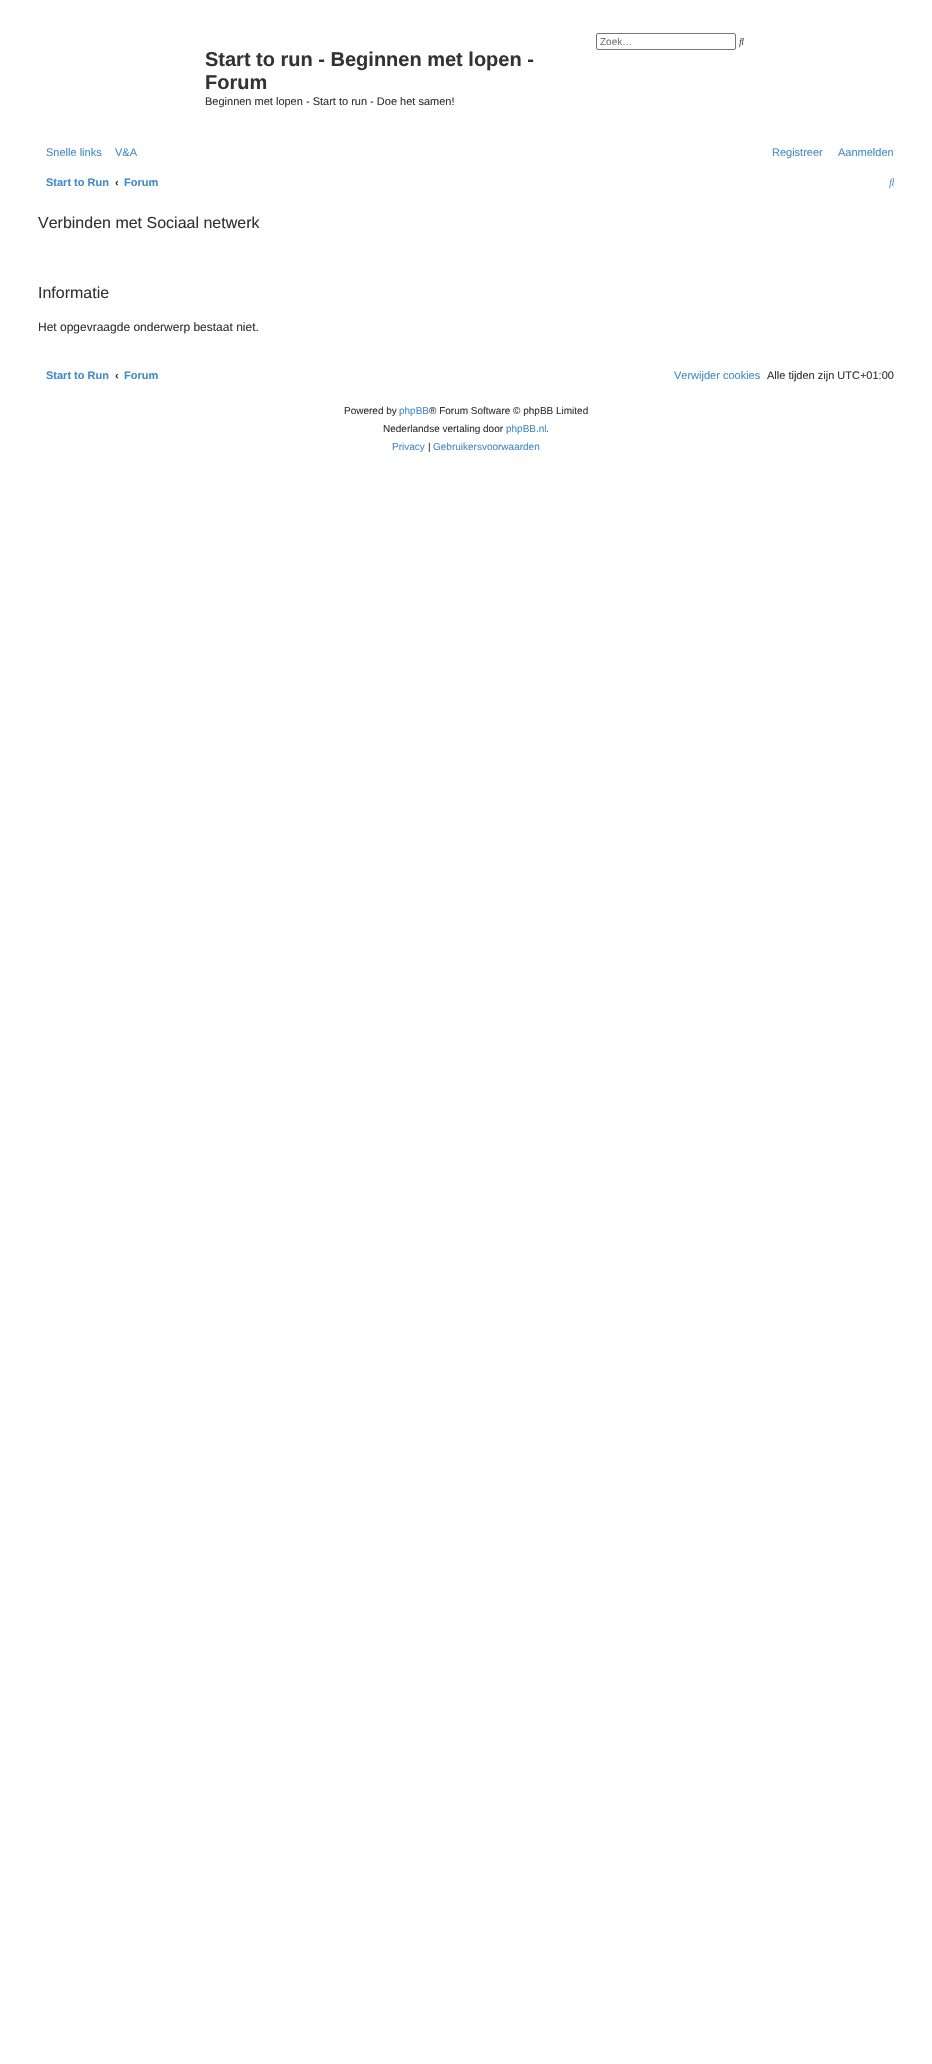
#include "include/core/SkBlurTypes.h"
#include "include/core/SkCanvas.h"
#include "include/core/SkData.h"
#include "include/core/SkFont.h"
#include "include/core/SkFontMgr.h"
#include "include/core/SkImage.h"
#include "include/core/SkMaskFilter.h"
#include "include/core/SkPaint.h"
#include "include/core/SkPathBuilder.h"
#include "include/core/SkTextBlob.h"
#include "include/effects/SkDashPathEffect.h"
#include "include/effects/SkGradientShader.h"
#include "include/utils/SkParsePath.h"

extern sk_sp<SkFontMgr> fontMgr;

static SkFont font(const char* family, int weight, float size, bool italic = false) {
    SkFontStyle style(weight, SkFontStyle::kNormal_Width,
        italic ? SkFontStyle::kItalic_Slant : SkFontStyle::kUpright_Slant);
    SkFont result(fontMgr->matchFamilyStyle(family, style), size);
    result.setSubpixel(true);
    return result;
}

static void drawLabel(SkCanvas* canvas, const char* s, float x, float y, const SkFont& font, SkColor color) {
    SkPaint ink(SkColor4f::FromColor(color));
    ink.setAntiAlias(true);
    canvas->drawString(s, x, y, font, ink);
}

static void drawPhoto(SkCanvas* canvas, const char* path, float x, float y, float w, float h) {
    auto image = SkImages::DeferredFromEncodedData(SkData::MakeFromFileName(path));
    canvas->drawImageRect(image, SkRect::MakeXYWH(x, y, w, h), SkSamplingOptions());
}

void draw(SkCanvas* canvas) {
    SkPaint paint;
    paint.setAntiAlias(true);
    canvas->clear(0xFFFFFFFF);
    paint.setStroke(true);
    paint.setStrokeWidth(1);
    paint.setColor(0xFF767676);
    canvas->drawRoundRect(SkRect::MakeXYWH(596.5f, 33.5f, 139, 16), 1.5f, 1.5f, paint);
    SkFont font1 = font("Liberation Sans", 400, 10);
    drawLabel(canvas, "Zoek…", 600, 45, font1, 0xFF757575);
    drawPhoto(canvas, "assets/img1.png", 739, 38, 5, 10);
    SkFont font2 = font("Liberation Sans", 700, 20);
    drawLabel(canvas, "Start to run - Beginnen met lopen -", 205, 66, font2, 0xFF333333);
    drawLabel(canvas, "Forum", 205, 89, font2, 0xFF333333);
    SkFont font3 = font("Liberation Sans", 400, 11);
    drawLabel(canvas, "Beginnen met lopen - Start to run - Doe het samen!", 205, 105, font3, 0xFF333333);
    drawLabel(canvas, "Snelle links", 46, 156, font3, 0xFF428BCA);
    drawLabel(canvas, "V&A", 115, 156, font3, 0xFF428BCA);
    drawLabel(canvas, "Registreer", 772, 156, font3, 0xFF428BCA);
    drawLabel(canvas, "Aanmelden", 838, 156, font3, 0xFF428BCA);
    SkFont font4 = font("Liberation Sans", 700, 11);
    drawLabel(canvas, "Start to Run", 46, 186, font4, 0xFF428BCA);
    drawLabel(canvas, "‹", 115, 186, font4, 0xFF333333);
    drawLabel(canvas, "Forum", 124, 186, font4, 0xFF428BCA);
    drawPhoto(canvas, "assets/img2.png", 889, 178, 6, 11);
    SkFont font5 = font("Liberation Sans", 400, 16);
    drawLabel(canvas, "Verbinden met Sociaal netwerk", 38, 228, font5, 0xFF333333);
    drawLabel(canvas, "Informatie", 38, 298, font5, 0xFF333333);
    SkFont font6 = font("Liberation Sans", 400, 12);
    drawLabel(canvas, "Het opgevraagde onderwerp bestaat niet.", 38, 331, font6, 0xFF333333);
    drawLabel(canvas, "Start to Run", 46, 379, font4, 0xFF428BCA);
    drawLabel(canvas, "‹", 115, 379, font4, 0xFF333333);
    drawLabel(canvas, "Forum", 124, 379, font4, 0xFF428BCA);
    drawLabel(canvas, "Verwijder cookies", 674, 379, font3, 0xFF428BCA);
    drawLabel(canvas, "Alle tijden zijn UTC+01:00", 767, 379, font3, 0xFF333333);
    drawLabel(canvas, "Powered by", 344, 414, font1, 0xFF333333);
    drawLabel(canvas, "phpBB", 399, 414, font1, 0xFF428BCA);
    drawLabel(canvas, "® Forum Software © phpBB Limited", 429, 414, font1, 0xFF333333);
    drawLabel(canvas, "Nederlandse vertaling door", 383, 432, font1, 0xFF333333);
    drawLabel(canvas, "phpBB.nl", 506, 432, font1, 0xFF428BCA);
    drawLabel(canvas, ".", 546, 432, font1, 0xFF333333);
    drawLabel(canvas, "Privacy", 392, 450, font1, 0xFF428BCA);
    drawLabel(canvas, "|", 428, 450, font1, 0xFF333333);
    drawLabel(canvas, "Gebruikersvoorwaarden", 433, 450, font1, 0xFF428BCA);
}
